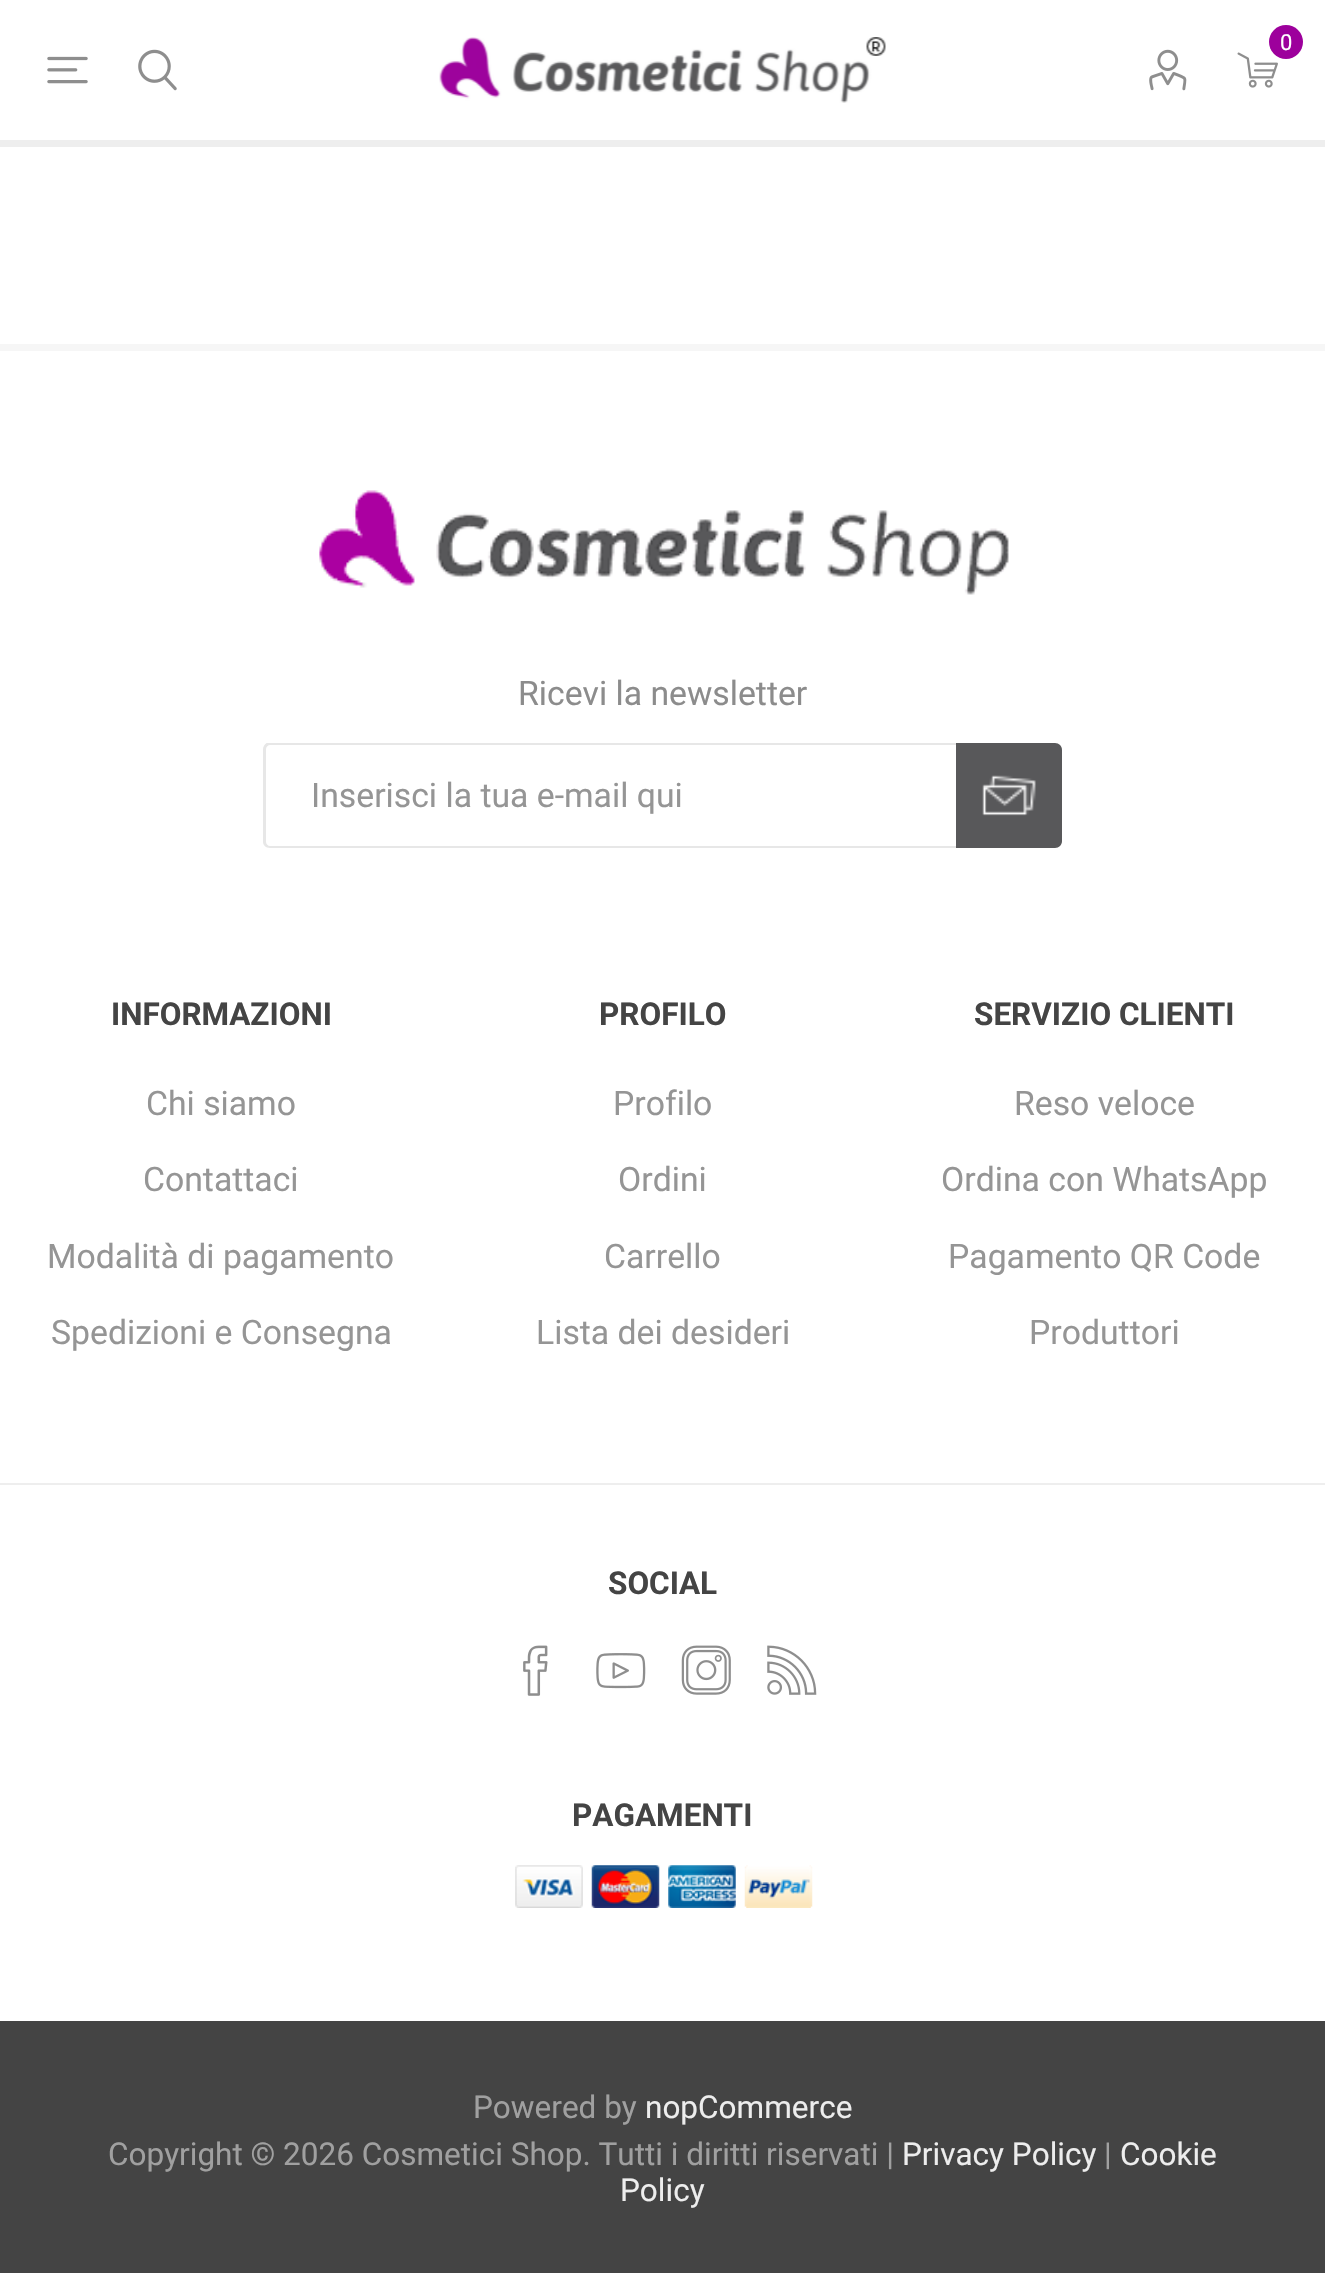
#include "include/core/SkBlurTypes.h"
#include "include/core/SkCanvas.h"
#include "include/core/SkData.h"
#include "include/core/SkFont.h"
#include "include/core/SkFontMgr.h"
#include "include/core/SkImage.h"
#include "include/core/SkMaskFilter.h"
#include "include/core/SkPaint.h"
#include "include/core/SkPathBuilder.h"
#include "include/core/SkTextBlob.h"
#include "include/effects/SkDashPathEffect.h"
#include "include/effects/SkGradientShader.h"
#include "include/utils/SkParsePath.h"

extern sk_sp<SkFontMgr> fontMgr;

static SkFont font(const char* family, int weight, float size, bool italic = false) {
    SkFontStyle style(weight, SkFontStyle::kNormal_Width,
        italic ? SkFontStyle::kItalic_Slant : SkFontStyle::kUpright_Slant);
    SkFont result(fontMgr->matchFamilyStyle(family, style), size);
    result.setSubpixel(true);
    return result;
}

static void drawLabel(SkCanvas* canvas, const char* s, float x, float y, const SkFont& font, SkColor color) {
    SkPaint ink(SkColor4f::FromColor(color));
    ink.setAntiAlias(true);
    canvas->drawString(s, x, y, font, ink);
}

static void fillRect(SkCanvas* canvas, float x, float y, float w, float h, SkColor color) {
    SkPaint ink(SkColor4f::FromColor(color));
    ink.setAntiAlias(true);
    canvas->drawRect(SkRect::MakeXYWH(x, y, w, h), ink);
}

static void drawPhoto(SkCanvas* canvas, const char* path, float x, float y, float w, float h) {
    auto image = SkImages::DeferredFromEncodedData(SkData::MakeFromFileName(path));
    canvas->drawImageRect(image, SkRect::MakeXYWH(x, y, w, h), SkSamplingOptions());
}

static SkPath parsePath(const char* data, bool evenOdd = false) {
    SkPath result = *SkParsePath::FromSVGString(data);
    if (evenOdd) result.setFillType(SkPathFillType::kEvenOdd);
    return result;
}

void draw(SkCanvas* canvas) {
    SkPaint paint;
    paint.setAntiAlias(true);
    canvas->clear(0xFFFFFFFF);
    fillRect(canvas, 0, 140, 1325, 7, 0xFFEEEEEE);
    drawPhoto(canvas, "assets/img1.png", 47, 56, 41, 28);
    drawPhoto(canvas, "assets/img2.png", 138, 49, 39, 42);
    drawPhoto(canvas, "assets/img3.png", 439, 37, 447, 66);
    drawPhoto(canvas, "assets/img4.png", 1149, 49, 38, 42);
    drawPhoto(canvas, "assets/img5.png", 1237, 52, 41, 36);
    paint.setColor(0xFF9D009C);
    canvas->drawCircle(1286, 42, 17, paint);
    SkFont font1 = font("Roboto", 400, 22);
    drawLabel(canvas, "0", 1280, 50, font1, 0xFFFFFFFF);
    fillRect(canvas, 0, 344, 1325, 7, 0xFFF6F6F6);
    drawPhoto(canvas, "assets/img6.png", 319, 490, 690, 105);
    SkFont font2 = font("Roboto", 400, 33.75f);
    drawLabel(canvas, "Ricevi la newsletter", 518, 705, font2, 0xFF8C8C8C);
    canvas->save();
    canvas->clipRect(SkRect::MakeXYWH(263, 743, 799, 105));
    paint.setColor(0xFFE7E7E7);
    canvas->drawPath(parsePath("M270 742H956V848H270C266 848 263 845 263 842V749C263 746 266 742 270 742ZM270 745H956V846H270C268 846 266 844 266 842V749C266 747 268 745 270 745Z", true), paint);
    canvas->restore();
    drawLabel(canvas, "Inserisci la tua e-mail qui", 311, 807, font2, 0xFF959595);
    paint.setColor(0xFF58585A);
    canvas->drawPath(parsePath("M956 743H1055C1059 743 1062 746 1062 750V841C1062 845 1059 848 1055 848H956Z"), paint);
    drawPhoto(canvas, "assets/img7.png", 982, 775, 54, 41);
    SkFont font3 = font("Roboto", 700, 31.5f);
    drawLabel(canvas, "INFORMAZIONI", 111, 1025, font3, 0xFF444444);
    drawLabel(canvas, "Chi siamo", 146, 1115, font2, 0xFF959595);
    drawLabel(canvas, "Contattaci", 143, 1191, font2, 0xFF959595);
    drawLabel(canvas, "Modalità di pagamento", 47, 1268, font2, 0xFF959595);
    drawLabel(canvas, "Spedizioni e Consegna", 51, 1344, font2, 0xFF959595);
    drawLabel(canvas, "PROFILO", 599, 1025, font3, 0xFF444444);
    drawLabel(canvas, "Profilo", 613, 1115, font2, 0xFF959595);
    drawLabel(canvas, "Ordini", 618, 1191, font2, 0xFF959595);
    drawLabel(canvas, "Carrello", 604, 1268, font2, 0xFF959595);
    drawLabel(canvas, "Lista dei desideri", 536, 1344, font2, 0xFF959595);
    drawLabel(canvas, "SERVIZIO CLIENTI", 974, 1025, font3, 0xFF444444);
    drawLabel(canvas, "Reso veloce", 1014, 1115, font2, 0xFF959595);
    drawLabel(canvas, "Ordina con WhatsApp", 941, 1191, font2, 0xFF959595);
    drawLabel(canvas, "Pagamento QR Code", 948, 1268, font2, 0xFF959595);
    drawLabel(canvas, "Produttori", 1029, 1344, font2, 0xFF959595);
    fillRect(canvas, 0, 1483, 1325, 2, 0xFFEEEEEE);
    drawLabel(canvas, "SOCIAL", 608, 1594, font3, 0xFF444444);
    drawPhoto(canvas, "assets/img8.png", 523, 1645, 25, 51);
    drawPhoto(canvas, "assets/img9.png", 596, 1653, 50, 36);
    drawPhoto(canvas, "assets/img10.png", 681, 1645, 50, 50);
    drawPhoto(canvas, "assets/img11.png", 767, 1645, 50, 50);
    drawLabel(canvas, "PAGAMENTI", 572, 1826, font3, 0xFF444444);
    drawPhoto(canvas, "assets/img12.png", 515, 1865, 68, 43);
    drawPhoto(canvas, "assets/img13.png", 591, 1865, 69, 43);
    drawPhoto(canvas, "assets/img14.png", 668, 1865, 68, 43);
    drawPhoto(canvas, "assets/img15.png", 744, 1865, 69, 43);
    fillRect(canvas, 0, 2021, 1325, 252, 0xFF444444);
    SkFont font4 = font("Roboto", 400, 31.5f);
    drawLabel(canvas, "Powered by", 473, 2118, font4, 0xFFA0A0A0);
    drawLabel(canvas, "nopCommerce", 645, 2118, font4, 0xFFEDEDED);
    drawLabel(canvas, "Copyright © 2026 Cosmetici Shop. Tutti i diritti riservati |", 108, 2165, font4, 0xFFA0A0A0);
    drawLabel(canvas, "Privacy Policy", 902, 2165, font4, 0xFFEDEDED);
    drawLabel(canvas, "|", 1104, 2165, font4, 0xFFA0A0A0);
    drawLabel(canvas, "Cookie", 1120, 2165, font4, 0xFFEDEDED);
    drawLabel(canvas, "Policy", 620, 2201, font4, 0xFFEDEDED);
}
